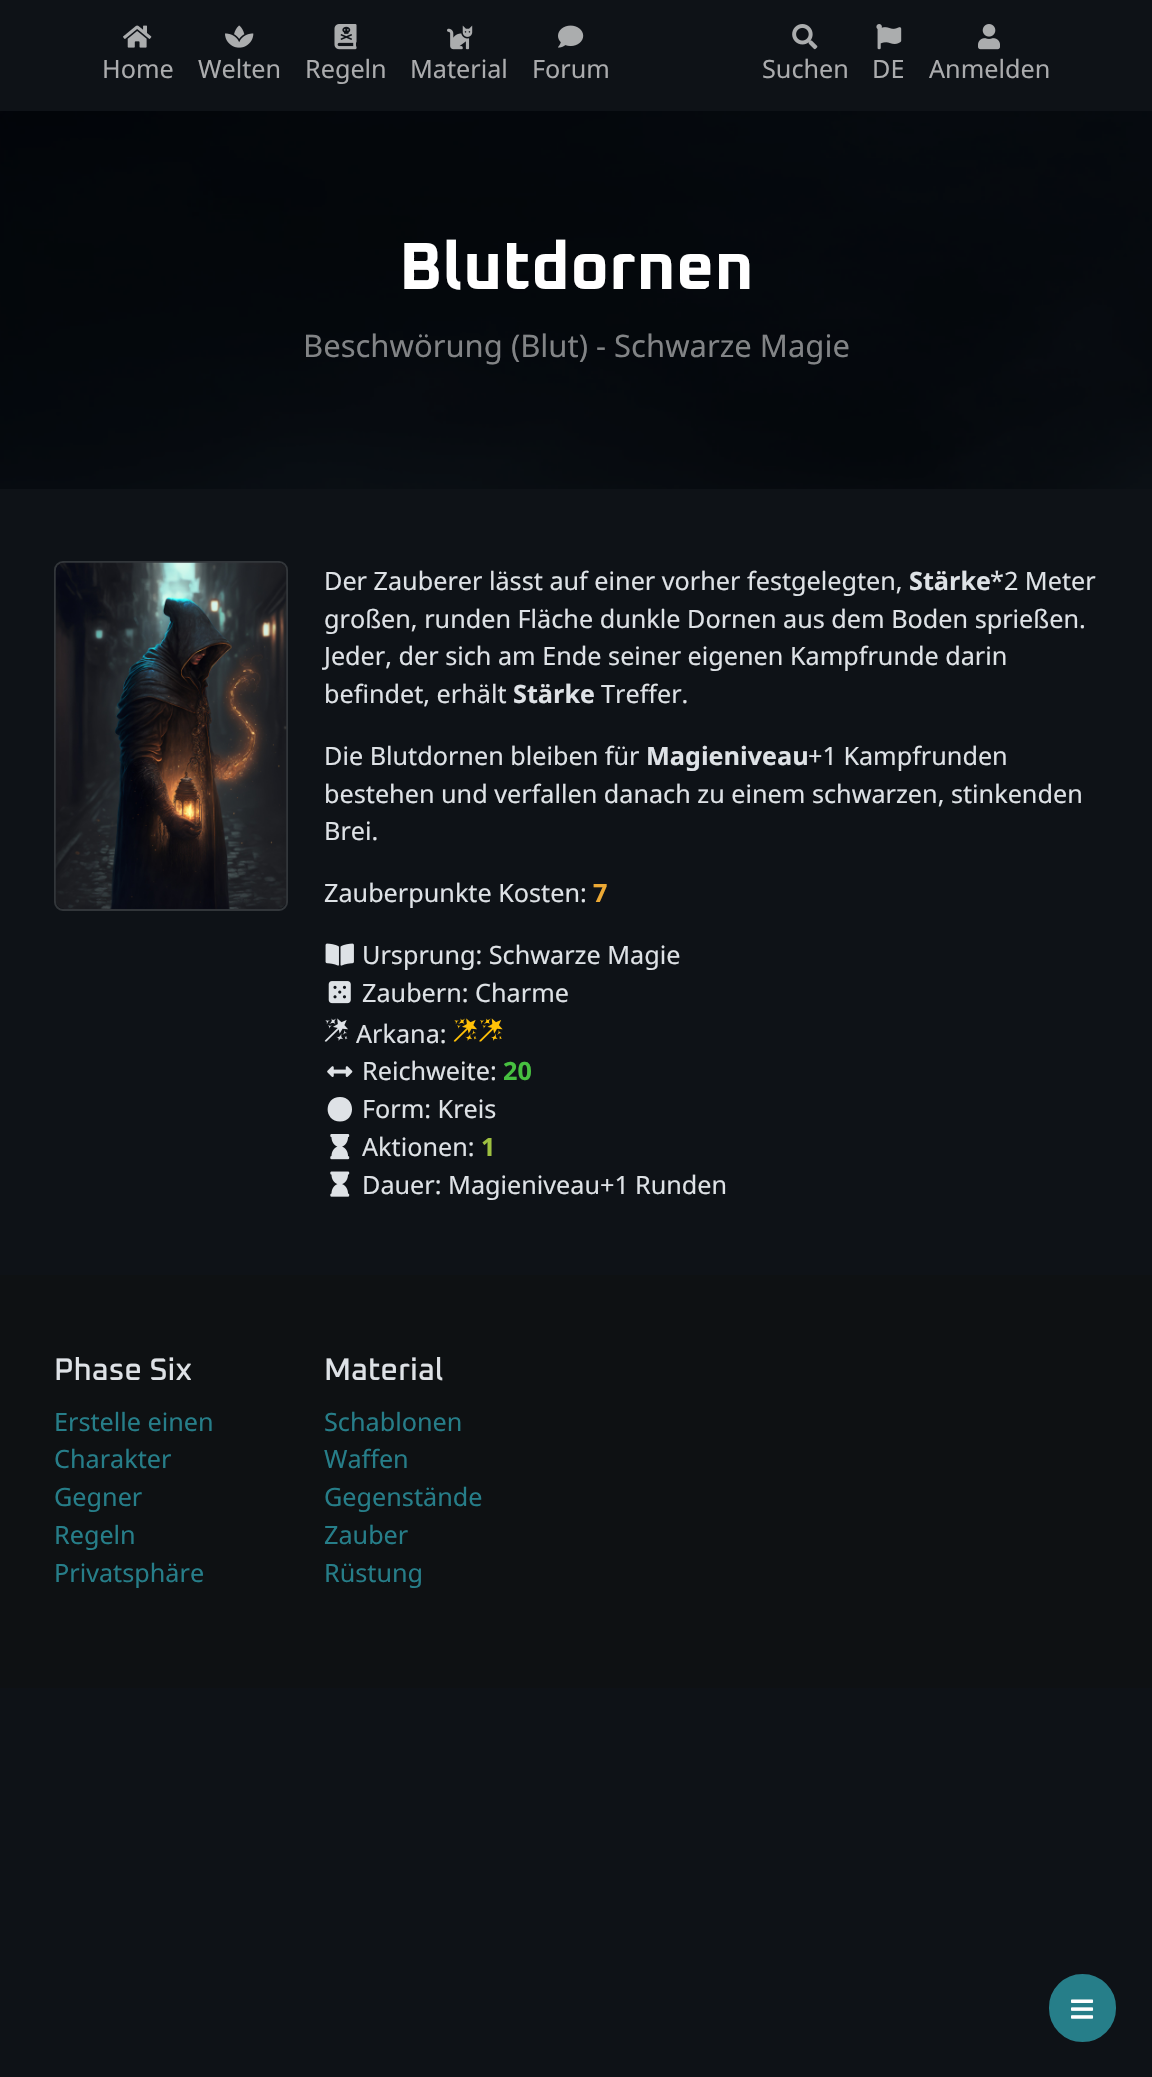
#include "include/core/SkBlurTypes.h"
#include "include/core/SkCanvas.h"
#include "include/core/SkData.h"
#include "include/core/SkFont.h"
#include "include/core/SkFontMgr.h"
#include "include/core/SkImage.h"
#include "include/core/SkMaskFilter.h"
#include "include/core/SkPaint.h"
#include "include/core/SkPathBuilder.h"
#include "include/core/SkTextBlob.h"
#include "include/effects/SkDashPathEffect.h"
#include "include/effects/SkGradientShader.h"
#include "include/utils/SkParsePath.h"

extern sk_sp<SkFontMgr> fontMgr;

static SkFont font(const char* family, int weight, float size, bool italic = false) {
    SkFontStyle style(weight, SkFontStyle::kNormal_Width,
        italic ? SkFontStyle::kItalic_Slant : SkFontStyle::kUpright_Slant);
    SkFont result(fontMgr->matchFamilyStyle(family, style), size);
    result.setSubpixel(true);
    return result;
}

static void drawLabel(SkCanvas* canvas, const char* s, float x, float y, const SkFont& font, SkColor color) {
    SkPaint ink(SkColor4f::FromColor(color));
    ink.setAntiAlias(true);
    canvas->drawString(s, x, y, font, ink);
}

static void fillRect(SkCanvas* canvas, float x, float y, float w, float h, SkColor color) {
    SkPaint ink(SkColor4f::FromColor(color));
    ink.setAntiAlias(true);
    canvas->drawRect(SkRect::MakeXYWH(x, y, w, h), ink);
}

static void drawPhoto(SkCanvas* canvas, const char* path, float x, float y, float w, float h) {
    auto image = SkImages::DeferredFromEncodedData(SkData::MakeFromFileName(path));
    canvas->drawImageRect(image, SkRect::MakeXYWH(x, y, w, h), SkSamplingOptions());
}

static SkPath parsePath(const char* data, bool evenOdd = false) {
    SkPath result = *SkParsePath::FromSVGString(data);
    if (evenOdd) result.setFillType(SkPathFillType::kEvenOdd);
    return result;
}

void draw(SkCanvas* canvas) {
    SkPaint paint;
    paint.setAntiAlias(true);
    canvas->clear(0xFF0E1217);
    drawPhoto(canvas, "assets/img1.png", 123, 25, 29, 23);
    SkFont font1 = font("Noto Sans", 400, 25.2f);
    drawLabel(canvas, "Home", 102, 78, font1, 0xFFABACAE);
    drawPhoto(canvas, "assets/img2.png", 225, 25, 29, 23);
    drawLabel(canvas, "Welten", 198, 78, font1, 0xFFABACAE);
    drawPhoto(canvas, "assets/img3.png", 334, 24, 23, 26);
    drawLabel(canvas, "Regeln", 305, 78, font1, 0xFFABACAE);
    drawPhoto(canvas, "assets/img4.png", 447, 25, 26, 25);
    drawLabel(canvas, "Material", 410, 78, font1, 0xFFABACAE);
    drawPhoto(canvas, "assets/img5.png", 558, 25, 26, 23);
    drawLabel(canvas, "Forum", 532, 78, font1, 0xFFABACAE);
    drawPhoto(canvas, "assets/img6.png", 792, 24, 26, 26);
    drawLabel(canvas, "Suchen", 762, 78, font1, 0xFFABACAE);
    drawPhoto(canvas, "assets/img7.png", 876, 24, 26, 26);
    drawLabel(canvas, "DE", 872, 78, font1, 0xFFABACAE);
    drawPhoto(canvas, "assets/img8.png", 978, 24, 22, 26);
    drawLabel(canvas, "Anmelden", 929, 78, font1, 0xFFABACAE);
    drawPhoto(canvas, "assets/img9.png", 0, 111, 1152, 378);
    SkFont font2 = font("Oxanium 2", 200, 66.5f);
    drawLabel(canvas, "Blutdornen", 399, 289, font2, 0xFFFFFFFF);
    SkFont font3 = font("Noto Sans", 400, 31);
    drawLabel(canvas, "Beschwörung (Blut) - Schwarze Magie", 303, 357, font3, 0xFF828486);
    paint.setStroke(true);
    paint.setStrokeWidth(2);
    paint.setColor(0xFF32363A);
    canvas->drawRoundRect(SkRect::MakeXYWH(55, 562, 232, 348), 8, 8, paint);
    drawPhoto(canvas, "assets/img10.png", 55, 562, 232, 347);
    drawLabel(canvas, "Der Zauberer lässt auf einer vorher festgelegten,", 324, 590, font1, 0xFFDEE2E6);
    SkFont font4 = font("Noto Sans", 700, 25.2f);
    drawLabel(canvas, "Stärke", 909, 590, font4, 0xFFDEE2E6);
    drawLabel(canvas, "*2 Meter", 990, 590, font1, 0xFFDEE2E6);
    drawLabel(canvas, "großen, runden Fläche dunkle Dornen aus dem Boden sprießen.", 324, 628, font1, 0xFFDEE2E6);
    drawLabel(canvas, "Jeder, der sich am Ende seiner eigenen Kampfrunde darin", 324, 665, font1, 0xFFDEE2E6);
    drawLabel(canvas, "befindet, erhält", 324, 703, font1, 0xFFDEE2E6);
    drawLabel(canvas, "Stärke", 513, 703, font4, 0xFFDEE2E6);
    drawLabel(canvas, "Treffer.", 601, 703, font1, 0xFFDEE2E6);
    drawLabel(canvas, "Die Blutdornen bleiben für", 324, 765, font1, 0xFFDEE2E6);
    drawLabel(canvas, "Magieniveau", 646, 765, font4, 0xFFDEE2E6);
    drawLabel(canvas, "+1 Kampfrunden", 808, 765, font1, 0xFFDEE2E6);
    drawLabel(canvas, "bestehen und verfallen danach zu einem schwarzen, stinkenden", 324, 803, font1, 0xFFDEE2E6);
    drawLabel(canvas, "Brei.", 324, 840, font1, 0xFFDEE2E6);
    drawLabel(canvas, "Zauberpunkte Kosten:", 324, 902, font1, 0xFFDEE2E6);
    drawLabel(canvas, "7", 593, 902, font4, 0xFFECA935);
    drawPhoto(canvas, "assets/img11.png", 325, 943, 29, 23);
    drawLabel(canvas, "Ursprung: Schwarze Magie", 362, 964, font1, 0xFFDEE2E6);
    drawPhoto(canvas, "assets/img12.png", 328, 981, 23, 23);
    drawLabel(canvas, "Zaubern: Charme", 362, 1002, font1, 0xFFDEE2E6);
    drawPhoto(canvas, "assets/img13.png", 324, 1018, 24, 24);
    drawLabel(canvas, "Arkana:", 356, 1043, font1, 0xFFDEE2E6);
    drawPhoto(canvas, "assets/img14.png", 453, 1018, 24, 24);
    drawPhoto(canvas, "assets/img15.png", 479, 1018, 24, 24);
    drawPhoto(canvas, "assets/img16.png", 327, 1066, 26, 11);
    drawLabel(canvas, "Reichweite:", 362, 1080, font1, 0xFFDEE2E6);
    drawLabel(canvas, "20", 503, 1080, font4, 0xFF47C040);
    paint.setStroke(false);
    paint.setColor(0xFFDEE2E6);
    canvas->drawPath(parsePath("M340 1097C323.5 1097 323.5 1121.5 340 1121.5C356 1121.5 356 1097 340 1097Z"), paint);
    drawLabel(canvas, "Form: Kreis", 362, 1118, font1, 0xFFDEE2E6);
    drawPhoto(canvas, "assets/img17.png", 330, 1134, 20, 26);
    drawLabel(canvas, "Aktionen:", 362, 1156, font1, 0xFFDEE2E6);
    drawLabel(canvas, "1", 481, 1156, font4, 0xFF9EC040);
    drawPhoto(canvas, "assets/img18.png", 330, 1171, 20, 26);
    drawLabel(canvas, "Dauer: Magieniveau+1", 362, 1194, font1, 0xFFDEE2E6);
    drawLabel(canvas, "Runden", 635, 1194, font1, 0xFFDEE2E6);
    fillRect(canvas, 0, 1275, 1152, 413, 0xFF0E1113);
    SkFont font5 = font("Oxanium", 200, 31);
    drawLabel(canvas, "Phase Six", 54, 1380, font5, 0xFFDEE2E6);
    drawLabel(canvas, "Erstelle einen", 54, 1431, font1, 0xFF267E89);
    drawLabel(canvas, "Charakter", 54, 1468, font1, 0xFF267E89);
    drawLabel(canvas, "Gegner", 54, 1506, font1, 0xFF267E89);
    drawLabel(canvas, "Regeln", 54, 1544, font1, 0xFF267E89);
    drawLabel(canvas, "Privatsphäre", 54, 1582, font1, 0xFF267E89);
    drawLabel(canvas, "Material", 324, 1380, font5, 0xFFDEE2E6);
    drawLabel(canvas, "Schablonen", 324, 1431, font1, 0xFF267E89);
    drawLabel(canvas, "Waffen", 324, 1468, font1, 0xFF267E89);
    drawLabel(canvas, "Gegenstände", 324, 1506, font1, 0xFF267E89);
    drawLabel(canvas, "Zauber", 324, 1544, font1, 0xFF267E89);
    drawLabel(canvas, "Rüstung", 324, 1582, font1, 0xFF267E89);
    paint.setColor(0xFF267E89);
    canvas->drawRoundRect(SkRect::MakeXYWH(1050, 1975, 65, 66), 32.5f, 32.5f, paint);
    paint.setStroke(true);
    canvas->drawRoundRect(SkRect::MakeXYWH(1050, 1975, 65, 66), 32.5f, 32.5f, paint);
    drawPhoto(canvas, "assets/img19.png", 1071, 1999, 23, 20);
}
